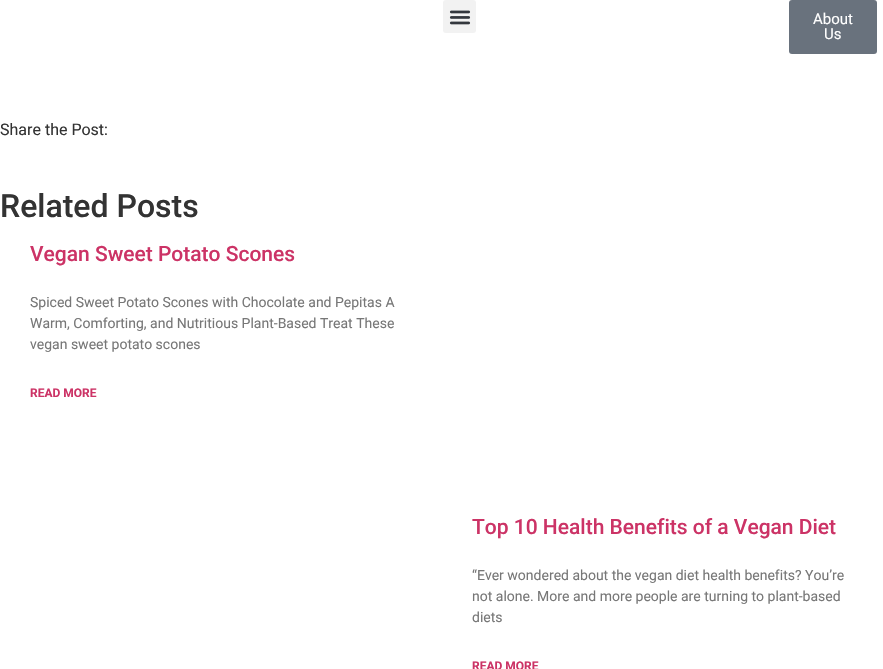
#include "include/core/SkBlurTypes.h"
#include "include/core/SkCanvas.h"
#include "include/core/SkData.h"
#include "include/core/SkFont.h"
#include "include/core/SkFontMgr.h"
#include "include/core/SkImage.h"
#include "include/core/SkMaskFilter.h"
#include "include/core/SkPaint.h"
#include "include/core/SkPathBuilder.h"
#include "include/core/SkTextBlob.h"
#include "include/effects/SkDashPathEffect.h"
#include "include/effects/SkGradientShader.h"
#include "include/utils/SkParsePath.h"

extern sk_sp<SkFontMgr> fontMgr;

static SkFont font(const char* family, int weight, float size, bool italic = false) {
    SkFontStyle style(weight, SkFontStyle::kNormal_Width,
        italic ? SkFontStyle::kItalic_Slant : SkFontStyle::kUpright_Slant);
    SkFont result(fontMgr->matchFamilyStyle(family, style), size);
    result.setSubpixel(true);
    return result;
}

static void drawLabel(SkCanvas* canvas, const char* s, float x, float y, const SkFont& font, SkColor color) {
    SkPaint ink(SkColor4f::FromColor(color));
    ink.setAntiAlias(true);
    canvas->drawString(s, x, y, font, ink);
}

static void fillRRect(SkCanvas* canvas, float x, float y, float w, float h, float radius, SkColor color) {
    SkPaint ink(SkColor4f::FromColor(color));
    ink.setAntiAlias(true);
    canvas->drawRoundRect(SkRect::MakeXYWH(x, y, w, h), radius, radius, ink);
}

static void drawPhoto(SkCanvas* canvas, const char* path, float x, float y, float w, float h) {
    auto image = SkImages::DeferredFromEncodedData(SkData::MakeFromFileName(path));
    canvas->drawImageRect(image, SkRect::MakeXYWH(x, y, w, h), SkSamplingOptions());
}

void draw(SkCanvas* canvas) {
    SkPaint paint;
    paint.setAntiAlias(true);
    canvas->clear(0xFFFFFFFF);
    fillRRect(canvas, 443, 0, 33, 33, 3, 0xFFF2F2F2);
    drawPhoto(canvas, "assets/img1.png", 449, 10, 22, 15);
    fillRRect(canvas, 789, 0, 88, 54, 3, 0xFF69727D);
    SkFont font1 = font("Roboto", 400, 15);
    drawLabel(canvas, "About", 813, 24, font1, 0xFFFFFFFF);
    drawLabel(canvas, "Us", 824, 39, font1, 0xFFFFFFFF);
    SkFont font2 = font("Roboto", 400, 16);
    drawLabel(canvas, "Share the Post:", 0, 135, font2, 0xFF333333);
    SkFont font3 = font("Roboto", 500, 32);
    drawLabel(canvas, "Related Posts", 0, 217, font3, 0xFF333333);
    SkFont font4 = font("Roboto", 500, 21);
    drawLabel(canvas, "Vegan Sweet Potato Scones", 30, 261, font4, 0xFFCC3366);
    SkFont font5 = font("Roboto", 400, 14);
    drawLabel(canvas, "Spiced Sweet Potato Scones with Chocolate and Pepitas A", 30, 307, font5, 0xFF777777);
    drawLabel(canvas, "Warm, Comforting, and Nutritious Plant-Based Treat These", 30, 328, font5, 0xFF777777);
    drawLabel(canvas, "vegan sweet potato scones", 30, 349, font5, 0xFF777777);
    SkFont font6 = font("Roboto", 700, 12);
    drawLabel(canvas, "READ MORE", 30, 397, font6, 0xFFCC3366);
    drawLabel(canvas, "Top 10 Health Benefits of a Vegan Diet", 472, 534, font4, 0xFFCC3366);
    drawLabel(canvas, "“Ever wondered about the vegan diet health benefits? You’re", 472, 580, font5, 0xFF777777);
    drawLabel(canvas, "not alone. More and more people are turning to plant-based", 472, 601, font5, 0xFF777777);
    drawLabel(canvas, "diets", 472, 622, font5, 0xFF777777);
    drawLabel(canvas, "READ MORE", 472, 670, font6, 0xFFCC3366);
}
